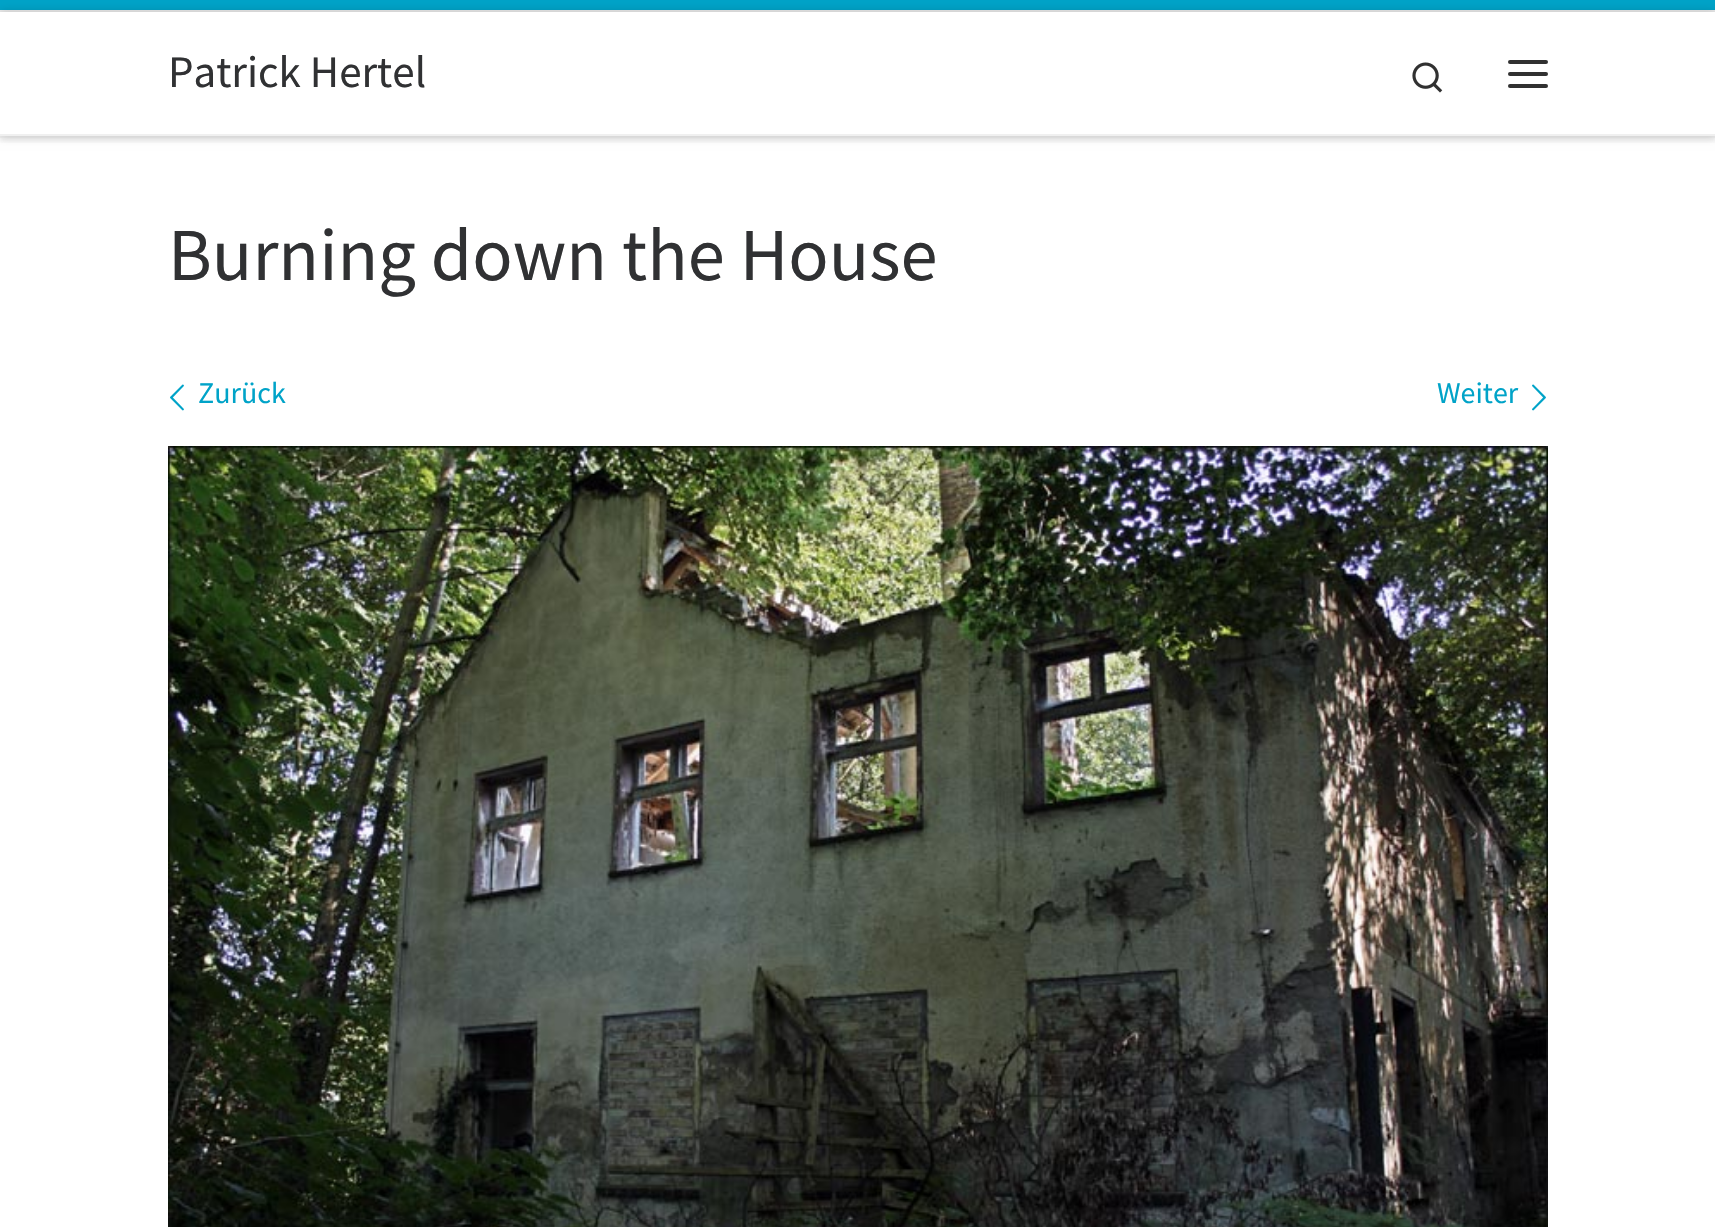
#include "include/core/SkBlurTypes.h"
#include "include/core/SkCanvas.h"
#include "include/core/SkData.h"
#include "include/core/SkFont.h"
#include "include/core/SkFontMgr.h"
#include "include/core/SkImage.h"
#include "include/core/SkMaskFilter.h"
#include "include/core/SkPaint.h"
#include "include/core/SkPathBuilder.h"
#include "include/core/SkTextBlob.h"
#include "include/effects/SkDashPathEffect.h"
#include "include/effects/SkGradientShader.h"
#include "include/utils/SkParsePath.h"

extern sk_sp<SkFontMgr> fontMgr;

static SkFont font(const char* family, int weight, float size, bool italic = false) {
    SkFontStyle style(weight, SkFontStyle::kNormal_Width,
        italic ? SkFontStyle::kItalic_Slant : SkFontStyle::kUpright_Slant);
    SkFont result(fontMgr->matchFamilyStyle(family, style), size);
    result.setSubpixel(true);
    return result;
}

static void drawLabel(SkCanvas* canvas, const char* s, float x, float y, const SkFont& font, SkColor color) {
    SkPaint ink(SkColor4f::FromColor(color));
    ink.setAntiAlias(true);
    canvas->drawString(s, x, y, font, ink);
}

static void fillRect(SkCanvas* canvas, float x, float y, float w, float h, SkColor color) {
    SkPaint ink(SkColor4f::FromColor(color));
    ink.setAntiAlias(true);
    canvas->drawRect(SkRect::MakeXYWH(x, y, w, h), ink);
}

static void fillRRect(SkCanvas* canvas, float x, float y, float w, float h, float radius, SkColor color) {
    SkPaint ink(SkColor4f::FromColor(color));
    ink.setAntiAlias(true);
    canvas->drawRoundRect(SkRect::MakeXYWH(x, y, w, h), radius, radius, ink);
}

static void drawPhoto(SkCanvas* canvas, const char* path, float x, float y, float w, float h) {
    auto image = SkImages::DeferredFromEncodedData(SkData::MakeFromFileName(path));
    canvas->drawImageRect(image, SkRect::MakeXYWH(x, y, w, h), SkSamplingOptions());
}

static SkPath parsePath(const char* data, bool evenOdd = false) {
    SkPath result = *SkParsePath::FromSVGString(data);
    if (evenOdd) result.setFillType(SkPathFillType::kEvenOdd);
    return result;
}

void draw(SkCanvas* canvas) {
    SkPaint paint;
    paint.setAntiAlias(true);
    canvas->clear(0xFFFFFFFF);
    canvas->save();
    canvas->clipRect(SkRect::MakeXYWH(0, 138, 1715, 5));
    paint.setColor(0x14666666);
    paint.setMaskFilter(SkMaskFilter::MakeBlur(kNormal_SkBlurStyle, 2));
    canvas->drawRect(SkRect::MakeXYWH(0, 4, 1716, 138), paint);
    paint.setMaskFilter(nullptr);
    canvas->restore();
    fillRect(canvas, 0, 0, 1715, 10, 0xFF00A3C8);
    fillRect(canvas, 0, 10, 1715, 2, 0xFFECECEC);
    fillRect(canvas, 0, 136, 1715, 2, 0xFFEFEFEF);
    canvas->save();
    canvas->clipPath(parsePath("M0 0H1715V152H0ZM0 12H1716V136H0Z", true), true);
    paint.setColor(0x33000000);
    paint.setMaskFilter(SkMaskFilter::MakeBlur(kNormal_SkBlurStyle, 5));
    canvas->drawRect(SkRect::MakeXYWH(0, 12, 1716, 124), paint);
    paint.setMaskFilter(nullptr);
    canvas->restore();
    SkFont font1 = font("Source Sans Pro", 400, 45);
    drawLabel(canvas, "Patrick Hertel", 168, 87, font1, 0xFF303133);
    drawPhoto(canvas, "assets/img1.png", 1412, 62, 31, 31);
    fillRRect(canvas, 1508, 60, 40, 4, 2, 0xFF313131);
    fillRRect(canvas, 1508, 72, 40, 4, 2, 0xFF313131);
    fillRRect(canvas, 1508, 84, 40, 4, 2, 0xFF313131);
    fillRect(canvas, 0, 134, 1715, 2, 0xFFF0F0F0);
    SkFont font2 = font("Source Sans Pro", 400, 74.6f);
    drawLabel(canvas, "Burning down the House", 168, 280, font2, 0xFF303133);
    drawPhoto(canvas, "assets/img2.png", 170, 384, 14, 27);
    SkFont font3 = font("Source Sans Pro", 400, 30);
    drawLabel(canvas, "Zurück", 198, 403, font3, 0xFF00A3C8);
    drawLabel(canvas, "Weiter", 1437, 403, font3, 0xFF00A3C8);
    drawPhoto(canvas, "assets/img3.png", 1532, 384, 14, 27);
    drawPhoto(canvas, "assets/img4.png", 168, 446, 1380, 781);
}
